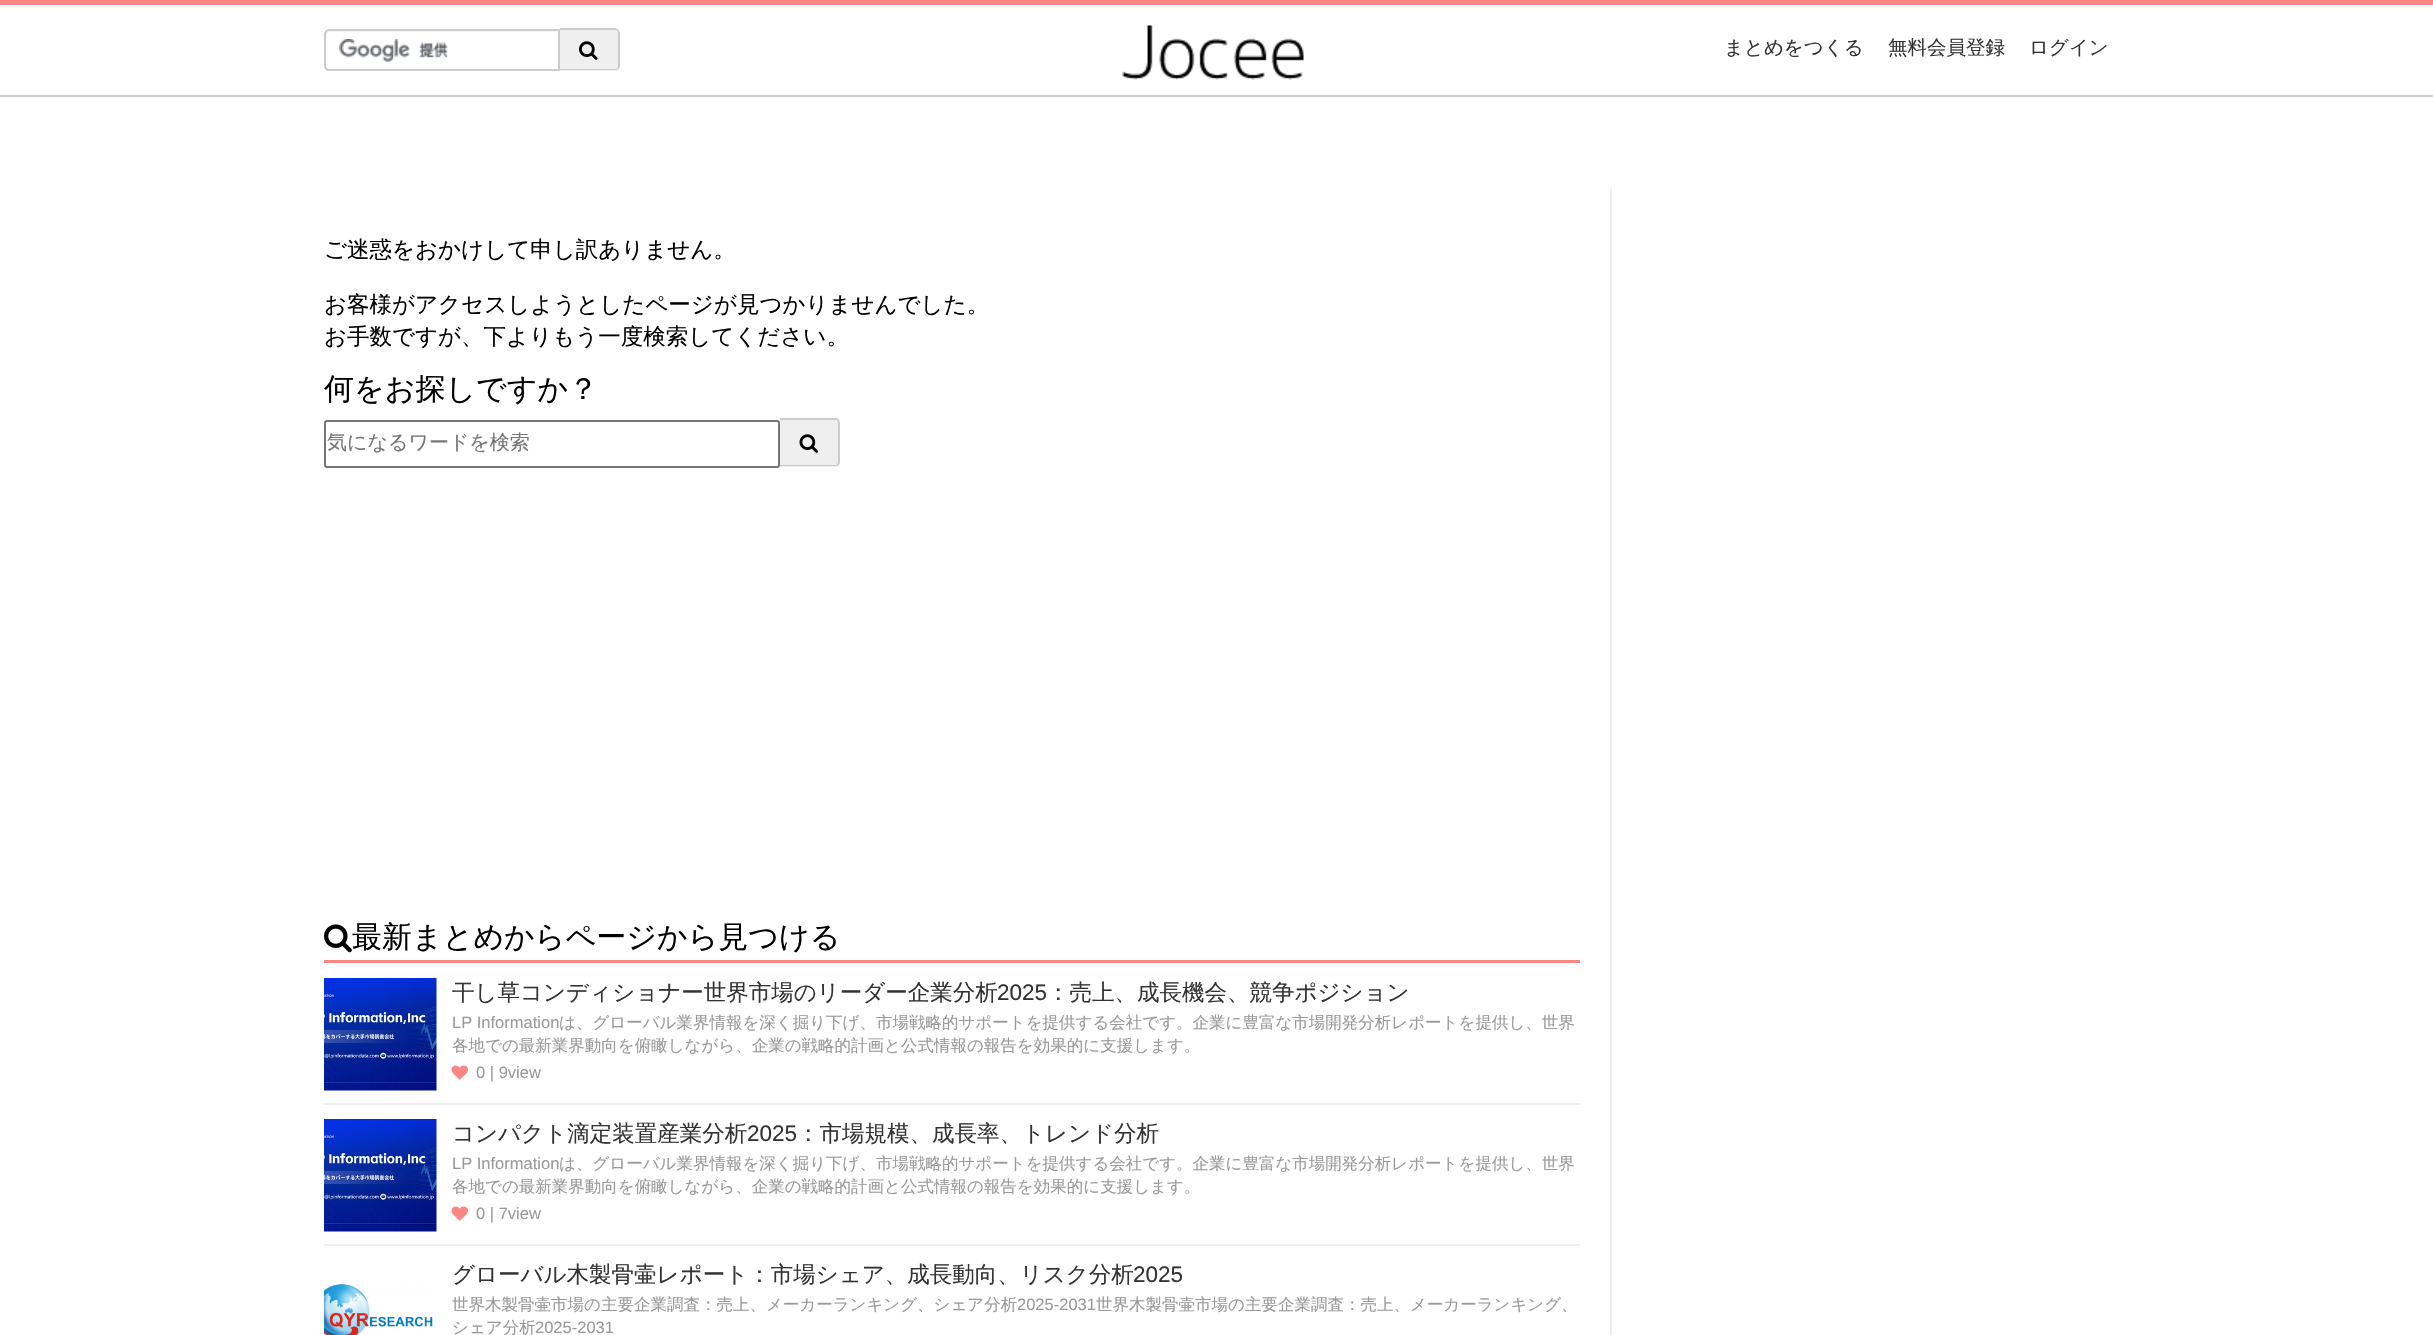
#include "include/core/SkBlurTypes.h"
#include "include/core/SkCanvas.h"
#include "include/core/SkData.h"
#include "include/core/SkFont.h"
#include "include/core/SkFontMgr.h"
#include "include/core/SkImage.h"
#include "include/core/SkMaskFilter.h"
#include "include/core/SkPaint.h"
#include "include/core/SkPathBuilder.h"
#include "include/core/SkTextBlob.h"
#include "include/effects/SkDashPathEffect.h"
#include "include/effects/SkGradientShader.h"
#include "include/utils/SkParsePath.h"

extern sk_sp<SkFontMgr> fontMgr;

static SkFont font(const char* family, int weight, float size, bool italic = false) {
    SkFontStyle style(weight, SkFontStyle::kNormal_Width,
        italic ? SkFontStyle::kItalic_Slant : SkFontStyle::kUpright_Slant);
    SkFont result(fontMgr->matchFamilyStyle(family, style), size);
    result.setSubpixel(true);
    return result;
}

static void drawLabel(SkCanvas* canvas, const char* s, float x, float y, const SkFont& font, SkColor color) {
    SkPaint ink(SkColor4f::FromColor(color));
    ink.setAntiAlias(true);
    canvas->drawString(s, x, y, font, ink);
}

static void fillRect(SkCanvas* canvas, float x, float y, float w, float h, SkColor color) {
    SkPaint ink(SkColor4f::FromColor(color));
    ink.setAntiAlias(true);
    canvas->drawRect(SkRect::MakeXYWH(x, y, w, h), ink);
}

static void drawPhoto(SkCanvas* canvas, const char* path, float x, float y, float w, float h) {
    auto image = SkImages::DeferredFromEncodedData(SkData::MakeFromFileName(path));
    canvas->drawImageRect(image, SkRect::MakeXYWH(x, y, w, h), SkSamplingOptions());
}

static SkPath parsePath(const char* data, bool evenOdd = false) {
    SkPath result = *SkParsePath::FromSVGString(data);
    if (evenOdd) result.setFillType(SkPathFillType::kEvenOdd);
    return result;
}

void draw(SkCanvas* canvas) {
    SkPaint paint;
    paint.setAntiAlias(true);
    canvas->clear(0xFFFFFFFF);
    fillRect(canvas, 0, 0, 2433, 5, 0xFFFB8785);
    fillRect(canvas, 0, 95, 2433, 2, 0xFFCCCCCC);
    drawPhoto(canvas, "assets/img1.png", 339, 39, 109, 23);
    paint.setColor(0xFFF5F5F5);
    canvas->drawPath(parsePath("M328 32H558V30H329C327 30 326 32 326 34C326 33 327 32 328 32Z"), paint);
    paint.setStroke(true);
    paint.setStrokeWidth(2);
    paint.setColor(0xFFCCCCCC);
    canvas->drawPath(parsePath("M329 30H559V70H329C327 70 325 68 325 66V34C325 32 327 30 329 30Z"), paint);
    paint.setStroke(false);
    paint.setColor(0xFFEFEFEF);
    canvas->drawPath(parsePath("M560 29H615C618 29 620 31 620 34V66C620 69 618 71 615 71H560Z"), paint);
    paint.setColor(0xFFCCCCCC);
    canvas->drawPath(parsePath("M560 28H615C617 28 620 31 620 33V66C620 68 617 70 615 70H560ZM560 30H615C617 30 618 31 618 33V66C618 68 617 69 615 69H560Z", true), paint);
    drawPhoto(canvas, "assets/img2.png", 579, 41, 19, 19);
    drawPhoto(canvas, "assets/img3.png", 1121, 25, 183, 55);
    SkFont font1 = font("WenQuanYi Zen Hei", 500, 19.5f);
    drawLabel(canvas, "まとめをつくる", 1724, 54, font1, 0xFF333333);
    drawLabel(canvas, "無料会員登録", 1888, 54, font1, 0xFF333333);
    drawLabel(canvas, "ログイン", 2029, 54, font1, 0xFF333333);
    fillRect(canvas, 1610, 188, 2, 1147, 0xFFEEEEEE);
    SkFont font2 = font("WenQuanYi Zen Hei", 500, 22.5f);
    drawLabel(canvas, "ご迷惑をおかけして申し訳ありません。", 324, 257, font2, 0xFF000000);
    drawLabel(canvas, "お客様がアクセスしようとしたページが見つかりませんでした。", 324, 312, font2, 0xFF000000);
    drawLabel(canvas, "お手数ですが、下よりもう一度検索してください。", 324, 344, font2, 0xFF000000);
    SkFont font3 = font("WenQuanYi Zen Hei", 500, 30);
    drawLabel(canvas, "何をお探しですか？", 324, 399, font3, 0xFF000000);
    paint.setStroke(true);
    paint.setColor(0xFF767676);
    canvas->drawRoundRect(SkRect::MakeXYWH(325, 421, 454, 46), 2, 2, paint);
    SkFont font4 = font("WenQuanYi Zen Hei", 500, 20);
    drawLabel(canvas, "気になるワードを検索", 327, 449, font4, 0xFF757575);
    paint.setStroke(false);
    paint.setColor(0xFFEFEFEF);
    canvas->drawPath(parsePath("M780 419H835C838 419 840 421 840 424V462C840 465 838 467 835 467H780Z"), paint);
    paint.setColor(0xFFCCCCCC);
    canvas->drawPath(parsePath("M780 418H836C838 418 840 421 840 423V462C840 464 838 466 836 466H780ZM780 420H836C837 420 838 421 838 423V462C838 464 837 465 836 465H780Z", true), paint);
    drawPhoto(canvas, "assets/img4.png", 799, 434, 20, 19);
    fillRect(canvas, 324, 960, 1256, 3, 0xFFFB8785);
    drawPhoto(canvas, "assets/img5.png", 324, 924, 28, 29);
    drawLabel(canvas, "最新まとめからページから見つける", 352, 947, font3, 0xFF000000);
    fillRect(canvas, 324, 1103, 1256, 2, 0xFFEEEEEE);
    drawPhoto(canvas, "assets/img6.png", 324, 978, 113, 113);
    drawLabel(canvas, "干し草コンディショナー世界市場のリーダー企業分析", 452, 1000, font2, 0xFF333333);
    SkFont font5 = font("Liberation Sans", 400, 22.5f);
    drawLabel(canvas, "2025", 997, 1000, font5, 0xFF333333);
    drawLabel(canvas, "：売上、成長機会、競争ポジション", 1047, 1000, font2, 0xFF333333);
    SkFont font6 = font("Liberation Sans", 400, 16.5f);
    drawLabel(canvas, "LP Information", 452, 1028, font6, 0xFF999999);
    SkFont font7 = font("WenQuanYi Zen Hei", 500, 16.5f);
    drawLabel(canvas, "は、グローバル業界情報を深く掘り下げ、市場戦略的サポートを提供する会社です。企業に豊富な市場開発分析レポートを提供し、世界", 559, 1028, font7, 0xFF999999);
    drawLabel(canvas, "各地での最新業界動向を俯瞰しながら、企業の戦略的計画と公式情報の報告を効果的に支援します。", 452, 1051, font7, 0xFF999999);
    drawPhoto(canvas, "assets/img7.png", 451, 1065, 17, 15);
    drawLabel(canvas, "0 | 9view", 476, 1078, font6, 0xFF999999);
    fillRect(canvas, 324, 1244, 1256, 2, 0xFFEEEEEE);
    drawPhoto(canvas, "assets/img6.png", 324, 1119, 113, 113);
    drawLabel(canvas, "コンパクト滴定装置産業分析", 452, 1141, font2, 0xFF333333);
    drawLabel(canvas, "2025", 747, 1141, font5, 0xFF333333);
    drawLabel(canvas, "：市場規模、成長率、トレンド分析", 797, 1141, font2, 0xFF333333);
    drawLabel(canvas, "LP Information", 452, 1169, font6, 0xFF999999);
    drawLabel(canvas, "は、グローバル業界情報を深く掘り下げ、市場戦略的サポートを提供する会社です。企業に豊富な市場開発分析レポートを提供し、世界", 559, 1169, font7, 0xFF999999);
    drawLabel(canvas, "各地での最新業界動向を俯瞰しながら、企業の戦略的計画と公式情報の報告を効果的に支援します。", 452, 1192, font7, 0xFF999999);
    drawPhoto(canvas, "assets/img7.png", 451, 1206, 17, 15);
    drawLabel(canvas, "0 | 7view", 476, 1219, font6, 0xFF999999);
    drawPhoto(canvas, "assets/img8.png", 324, 1284, 109, 51);
    drawLabel(canvas, "グローバル木製骨壷レポート：市場シェア、成長動向、リスク分析", 452, 1282, font2, 0xFF333333);
    drawLabel(canvas, "2025", 1133, 1282, font5, 0xFF333333);
    drawLabel(canvas, "世界木製骨壷市場の主要企業調査：売上、メーカーランキング、シェア分析", 452, 1310, font7, 0xFF999999);
    drawLabel(canvas, "2025-2031", 1017, 1310, font6, 0xFF999999);
    drawLabel(canvas, "世界木製骨壷市場の主要企業調査：売上、メーカーランキング、", 1096, 1310, font7, 0xFF999999);
    drawLabel(canvas, "シェア分析", 452, 1333, font7, 0xFF999999);
    drawLabel(canvas, "2025-2031", 535, 1333, font6, 0xFF999999);
}
